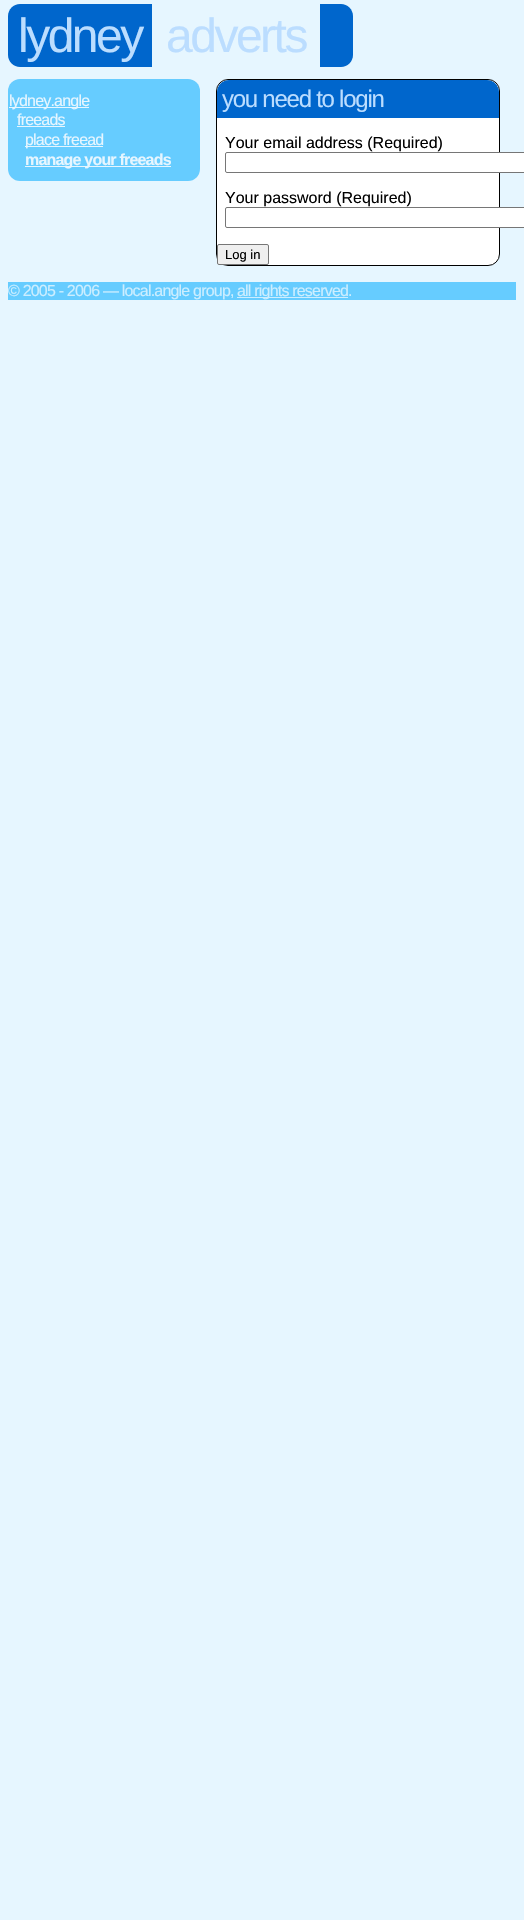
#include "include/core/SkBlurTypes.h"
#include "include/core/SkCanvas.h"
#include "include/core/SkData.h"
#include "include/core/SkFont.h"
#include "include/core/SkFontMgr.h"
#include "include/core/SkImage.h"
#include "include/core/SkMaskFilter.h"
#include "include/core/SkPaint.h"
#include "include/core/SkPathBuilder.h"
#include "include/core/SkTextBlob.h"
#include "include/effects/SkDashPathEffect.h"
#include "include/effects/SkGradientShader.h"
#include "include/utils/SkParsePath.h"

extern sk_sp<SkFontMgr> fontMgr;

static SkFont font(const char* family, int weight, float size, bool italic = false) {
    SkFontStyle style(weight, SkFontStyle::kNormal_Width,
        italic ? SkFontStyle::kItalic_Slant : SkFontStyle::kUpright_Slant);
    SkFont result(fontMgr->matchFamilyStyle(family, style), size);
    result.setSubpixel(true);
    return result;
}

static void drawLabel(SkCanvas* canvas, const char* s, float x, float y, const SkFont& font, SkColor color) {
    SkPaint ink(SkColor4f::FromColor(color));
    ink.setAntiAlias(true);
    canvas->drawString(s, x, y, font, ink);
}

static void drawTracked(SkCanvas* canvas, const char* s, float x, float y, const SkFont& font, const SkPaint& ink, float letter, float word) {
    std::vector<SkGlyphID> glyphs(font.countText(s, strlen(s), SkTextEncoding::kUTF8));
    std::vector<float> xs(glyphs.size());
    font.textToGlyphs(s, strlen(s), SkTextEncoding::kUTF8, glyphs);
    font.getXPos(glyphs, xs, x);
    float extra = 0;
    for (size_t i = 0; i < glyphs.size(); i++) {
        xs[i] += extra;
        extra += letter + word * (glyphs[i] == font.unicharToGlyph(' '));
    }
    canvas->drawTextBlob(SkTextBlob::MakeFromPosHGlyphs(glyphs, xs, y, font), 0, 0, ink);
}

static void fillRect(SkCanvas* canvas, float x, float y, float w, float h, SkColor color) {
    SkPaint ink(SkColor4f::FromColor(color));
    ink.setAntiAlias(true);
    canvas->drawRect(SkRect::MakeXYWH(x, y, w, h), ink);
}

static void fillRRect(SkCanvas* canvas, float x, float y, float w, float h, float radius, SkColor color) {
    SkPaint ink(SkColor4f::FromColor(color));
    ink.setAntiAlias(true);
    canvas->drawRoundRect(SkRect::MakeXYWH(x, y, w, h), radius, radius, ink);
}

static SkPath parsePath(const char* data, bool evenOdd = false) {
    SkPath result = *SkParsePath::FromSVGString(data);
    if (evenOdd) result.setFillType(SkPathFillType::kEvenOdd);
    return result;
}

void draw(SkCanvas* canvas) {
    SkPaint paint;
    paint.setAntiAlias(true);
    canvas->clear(0xFFE6F6FF);
    paint.setColor(0xFF0066CC);
    canvas->drawPath(parsePath("M20 4H152V67H20C13.5 67 8 61.5 8 55V16C8 9.5 13.5 4 20 4Z"), paint);
    SkFont font1 = font("Liberation Sans", 400, 48);
    paint.setColor(0xFFBBDDFF);
    drawTracked(canvas, "lydney", 18, 52, font1, paint, -2.5f, 0);
    drawTracked(canvas, "adverts", 166, 52, font1, paint, -2.5f, 0);
    paint.setColor(0xFF0066CC);
    canvas->drawPath(parsePath("M320 4H341C347.5 4 353 9.5 353 16V55C353 61.5 347.5 67 341 67H320Z"), paint);
    fillRRect(canvas, 8, 79, 192, 102, 12, 0xFF66CCFF);
    fillRect(canvas, 9, 107, 80, 1, 0xFFE6F6FF);
    SkFont font2 = font("Liberation Sans", 400, 16);
    paint.setColor(0xFFE6F6FF);
    drawTracked(canvas, "lydney.angle", 9, 106, font2, paint, -0.8f, 0);
    drawTracked(canvas, "freeads", 17, 125, font2, paint, -0.8f, 0);
    fillRect(canvas, 17, 126, 48, 1, 0xFFE6F6FF);
    fillRect(canvas, 25, 146, 78, 1, 0xFFE6F6FF);
    drawTracked(canvas, "place freead", 25, 145, font2, paint, -0.8f, 0);
    fillRect(canvas, 25, 166, 146, 1, 0xFFE6F6FF);
    SkFont font3 = font("Liberation Sans", 700, 16);
    drawTracked(canvas, "manage your freeads", 25, 165, font3, paint, -0.8f, 0);
    paint.setColor(0xFFFFFFFF);
    canvas->drawRoundRect(SkRect::MakeXYWH(216.5f, 79.5f, 283, 186), 11.5f, 11.5f, paint);
    paint.setStroke(true);
    paint.setStrokeWidth(1);
    paint.setColor(0xFF000000);
    canvas->drawRoundRect(SkRect::MakeXYWH(216.5f, 79.5f, 283, 186), 11.5f, 11.5f, paint);
    paint.setStroke(false);
    paint.setColor(0xFF0066CC);
    canvas->drawPath(parsePath("M229 80H487C493.5 80 499 85.5 499 92V118H217V92C217 85.5 222.5 80 229 80Z"), paint);
    SkFont font4 = font("Liberation Sans", 400, 24);
    paint.setColor(0xFFBBDDFF);
    drawTracked(canvas, "you need to login", 222, 107, font4, paint, -1.25f, 0);
    drawLabel(canvas, "Your email address (Required)", 225, 148, font2, 0xFF000000);
    paint.setColor(0xFFFFFFFF);
    canvas->drawRoundRect(SkRect::MakeXYWH(225.5f, 152.5f, 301, 20), 1.5f, 1.5f, paint);
    paint.setStroke(true);
    paint.setColor(0xFF767676);
    canvas->drawRoundRect(SkRect::MakeXYWH(225.5f, 152.5f, 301, 20), 1.5f, 1.5f, paint);
    drawLabel(canvas, "Your password (Required)", 225, 203, font2, 0xFF000000);
    paint.setStroke(false);
    paint.setColor(0xFFFFFFFF);
    canvas->drawRoundRect(SkRect::MakeXYWH(225.5f, 207.5f, 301, 20), 1.5f, 1.5f, paint);
    paint.setStroke(true);
    paint.setColor(0xFF767676);
    canvas->drawRoundRect(SkRect::MakeXYWH(225.5f, 207.5f, 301, 20), 1.5f, 1.5f, paint);
    paint.setStroke(false);
    paint.setColor(0xFFEFEFEF);
    canvas->drawRoundRect(SkRect::MakeXYWH(217.5f, 244.5f, 51, 20), 1.5f, 1.5f, paint);
    paint.setStroke(true);
    paint.setColor(0xFF767676);
    canvas->drawRoundRect(SkRect::MakeXYWH(217.5f, 244.5f, 51, 20), 1.5f, 1.5f, paint);
    SkFont font5 = font("Liberation Sans", 400, 13);
    drawLabel(canvas, "Log in", 225, 259, font5, 0xFF000000);
    fillRect(canvas, 8, 282, 508, 18, 0xFF66CCFF);
    paint.setStroke(false);
    paint.setColor(0xFFCCEEFF);
    drawTracked(canvas, "© 2005 - 2006 — local.angle group,", 8, 296, font2, paint, -0.8f, 0);
    fillRect(canvas, 237, 297, 111, 1, 0xFFCCEEFF);
    drawTracked(canvas, "all rights reserved.", 237, 296, font2, paint, -0.8f, 0);
}
